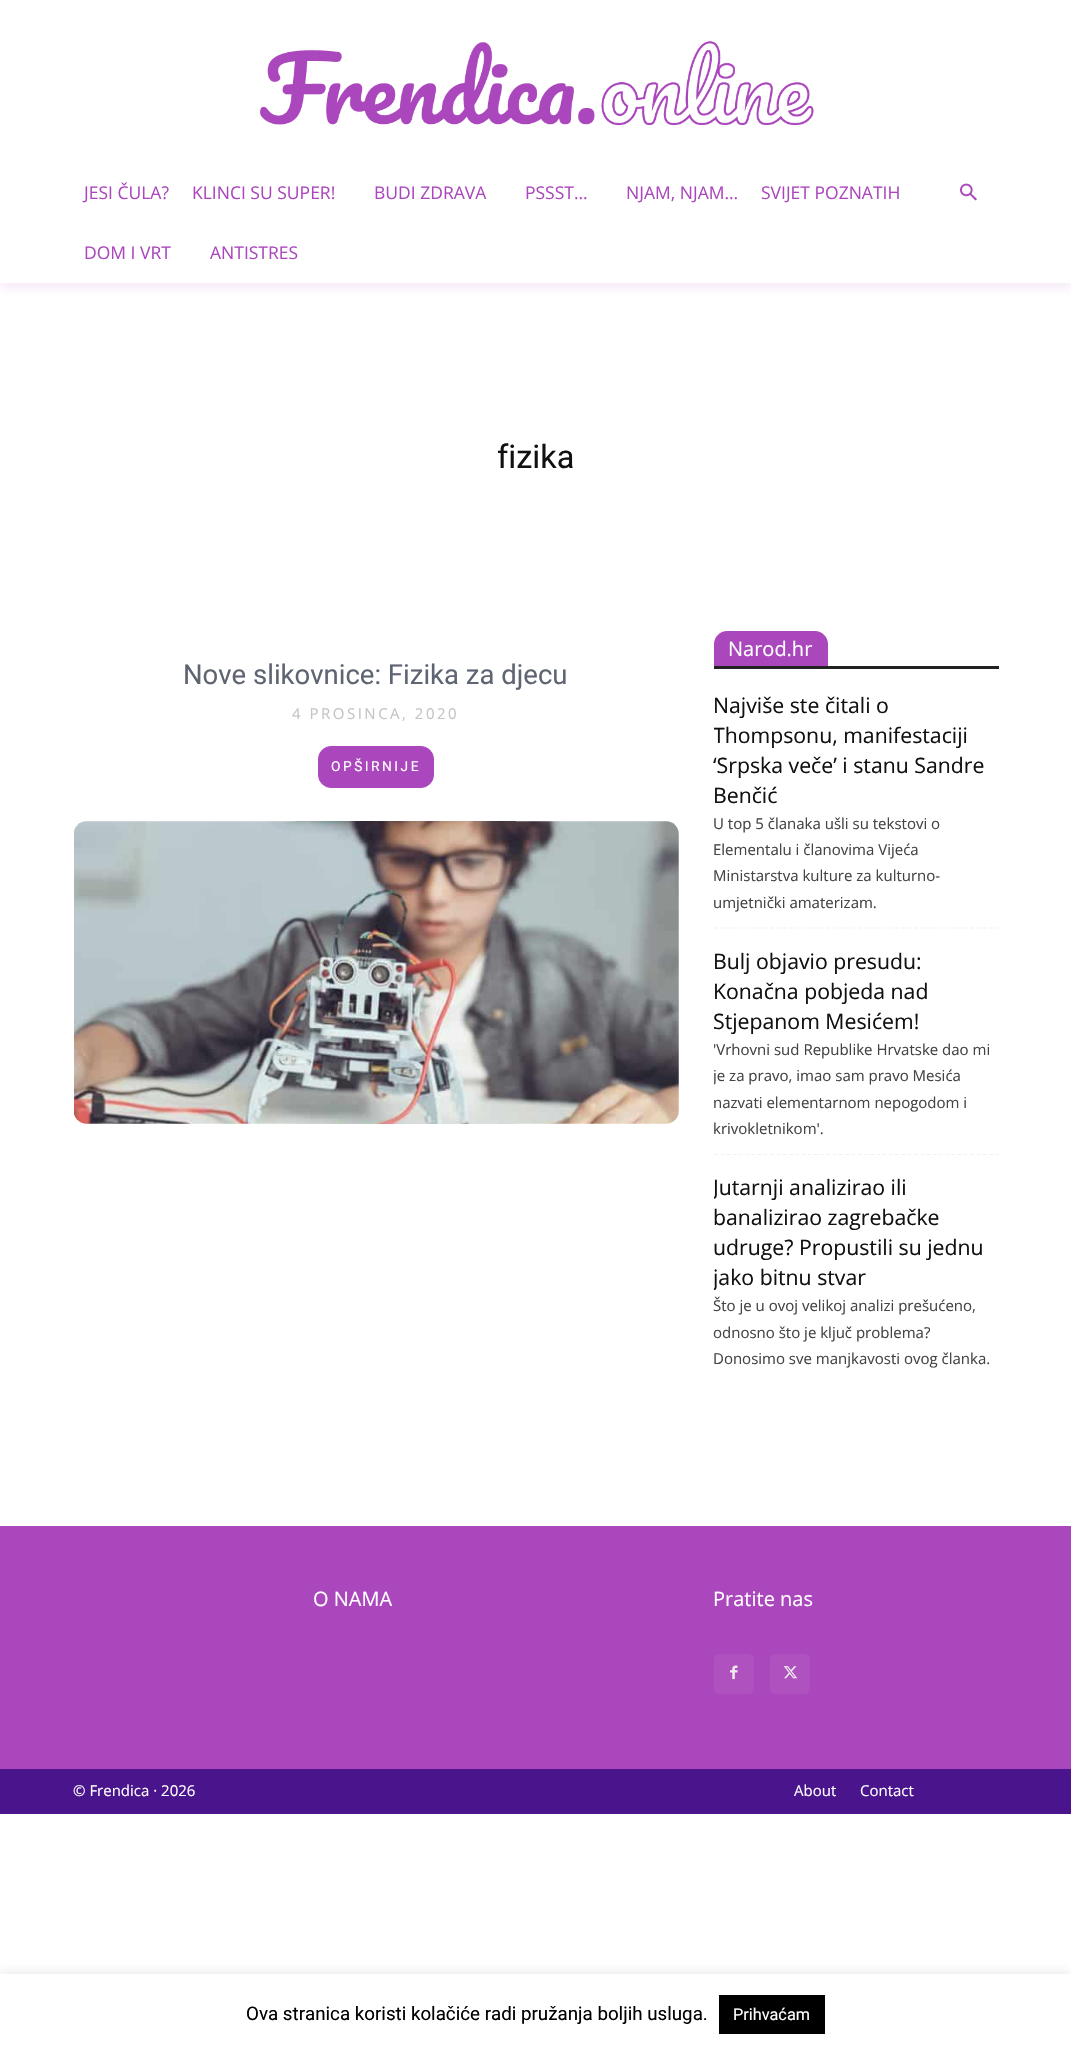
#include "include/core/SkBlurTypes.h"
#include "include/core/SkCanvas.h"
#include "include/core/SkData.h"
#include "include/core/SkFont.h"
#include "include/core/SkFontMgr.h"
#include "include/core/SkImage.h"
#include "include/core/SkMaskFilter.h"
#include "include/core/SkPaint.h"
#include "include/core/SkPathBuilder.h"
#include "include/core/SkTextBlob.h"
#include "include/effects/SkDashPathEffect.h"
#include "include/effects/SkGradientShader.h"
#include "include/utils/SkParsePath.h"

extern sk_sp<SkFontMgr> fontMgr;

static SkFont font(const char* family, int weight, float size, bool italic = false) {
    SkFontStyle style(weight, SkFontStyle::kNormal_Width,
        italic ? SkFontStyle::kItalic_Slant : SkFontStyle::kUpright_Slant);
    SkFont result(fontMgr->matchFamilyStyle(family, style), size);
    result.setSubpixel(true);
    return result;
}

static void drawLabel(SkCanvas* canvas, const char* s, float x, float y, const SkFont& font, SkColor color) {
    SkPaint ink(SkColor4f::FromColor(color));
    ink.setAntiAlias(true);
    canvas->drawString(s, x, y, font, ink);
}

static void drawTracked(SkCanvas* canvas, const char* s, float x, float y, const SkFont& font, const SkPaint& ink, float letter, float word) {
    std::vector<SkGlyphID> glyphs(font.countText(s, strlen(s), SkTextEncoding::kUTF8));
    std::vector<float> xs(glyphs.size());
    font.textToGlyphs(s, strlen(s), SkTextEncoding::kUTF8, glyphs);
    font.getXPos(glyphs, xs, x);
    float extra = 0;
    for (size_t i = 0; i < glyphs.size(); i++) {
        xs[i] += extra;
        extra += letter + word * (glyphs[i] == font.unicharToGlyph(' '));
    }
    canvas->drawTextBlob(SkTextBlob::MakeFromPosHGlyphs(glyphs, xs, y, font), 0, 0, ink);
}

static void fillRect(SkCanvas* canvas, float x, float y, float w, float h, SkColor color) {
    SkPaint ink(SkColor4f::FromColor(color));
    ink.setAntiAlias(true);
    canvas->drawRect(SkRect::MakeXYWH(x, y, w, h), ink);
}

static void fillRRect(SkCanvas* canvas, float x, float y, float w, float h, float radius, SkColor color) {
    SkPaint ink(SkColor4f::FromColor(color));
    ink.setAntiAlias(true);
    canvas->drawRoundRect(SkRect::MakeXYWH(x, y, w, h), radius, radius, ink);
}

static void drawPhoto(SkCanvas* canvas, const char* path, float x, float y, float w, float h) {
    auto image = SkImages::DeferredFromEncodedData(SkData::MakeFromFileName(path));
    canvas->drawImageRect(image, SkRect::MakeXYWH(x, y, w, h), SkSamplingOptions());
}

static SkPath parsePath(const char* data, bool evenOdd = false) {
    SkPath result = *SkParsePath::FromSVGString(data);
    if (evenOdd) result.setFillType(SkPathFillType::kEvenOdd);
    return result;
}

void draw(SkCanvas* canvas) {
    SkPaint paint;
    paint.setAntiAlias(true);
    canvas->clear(0xFFFFFFFF);
    drawPhoto(canvas, "assets/img1.png", 260, 41, 554, 84);
    SkFont font1 = font("Open Sans", 400, 17.5f);
    drawLabel(canvas, "JESI ČULA?", 84, 199, font1, 0xFFAB47BC);
    drawLabel(canvas, "KLINCI SU SUPER!", 192, 199, font1, 0xFFAB47BC);
    drawLabel(canvas, "BUDI ZDRAVA", 374, 199, font1, 0xFFAB47BC);
    drawLabel(canvas, "PSSST…", 525, 199, font1, 0xFFAB47BC);
    drawLabel(canvas, "NJAM, NJAM…", 626, 199, font1, 0xFFAB47BC);
    drawLabel(canvas, "SVIJET POZNATIH", 761, 199, font1, 0xFFAB47BC);
    drawLabel(canvas, "DOM I VRT", 84, 259, font1, 0xFFAB47BC);
    drawLabel(canvas, "ANTISTRES", 210, 259, font1, 0xFFAB47BC);
    drawPhoto(canvas, "assets/img2.png", 960, 183, 17, 18);
    canvas->save();
    canvas->clipPath(parsePath("M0 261H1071V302H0ZM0 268H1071V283H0Z", true), true);
    paint.setColor(0x1AAB47BC);
    paint.setMaskFilter(SkMaskFilter::MakeBlur(kNormal_SkBlurStyle, 4));
    canvas->drawRect(SkRect::MakeXYWH(0, 274, 1071, 15), paint);
    paint.setMaskFilter(nullptr);
    canvas->restore();
    SkFont font2 = font("Roboto", 400, 32.5f);
    drawLabel(canvas, "fizika", 497, 468, font2, 0xFF111111);
    SkFont font3 = font("Roboto", 400, 27.5f);
    drawLabel(canvas, "Nove slikovnice: Fizika za djecu", 183, 684, font3, 0xFF5E6471);
    SkFont font4 = font("Open Sans", 400, 15);
    paint.setColor(0xFFC4C4C4);
    drawTracked(canvas, "4 PROSINCA, 2020", 292, 719, font4, paint, 2.5f, 0);
    paint.setColor(0xFFAB47BC);
    canvas->drawRoundRect(SkRect::MakeXYWH(318.5f, 746.5f, 115, 41), 12.5f, 12.5f, paint);
    paint.setStroke(true);
    paint.setStrokeWidth(1);
    canvas->drawRoundRect(SkRect::MakeXYWH(318.5f, 746.5f, 115, 41), 12.5f, 12.5f, paint);
    SkFont font5 = font("Roboto", 400, 13.75f);
    paint.setStroke(false);
    paint.setColor(0xFFFFFFFF);
    drawTracked(canvas, "OPŠIRNIJE", 331, 771, font5, paint, 2.5f, 0);
    drawPhoto(canvas, "assets/img3.png", 74, 821, 605, 303);
    fillRect(canvas, 714, 666, 285, 3, 0xFF222222);
    paint.setColor(0xFFAB47BC);
    canvas->drawPath(parsePath("M727 631H815C822 631 828 637 828 644V666H714V644C714 637 720 631 727 631Z"), paint);
    SkFont font6 = font("Open Sans", 400, 20);
    drawLabel(canvas, "Narod.hr", 728, 656, font6, 0xFFFFFFFF);
    paint.setStroke(true);
    paint.setStrokeWidth(1.2f);
    paint.setColor(0xFFF1F1F1);
    paint.setPathEffect(SkDashPathEffect::Make({{3.75f, 2.5f}}, 0));
    canvas->drawPath(parsePath("M714 928H999"), paint);
    paint.setPathEffect(nullptr);
    SkFont font7 = font("Open Sans", 400, 21.25f);
    drawLabel(canvas, "Najviše ste čitali o", 713, 713, font7, 0xFF111111);
    canvas->save();
    canvas->clipRect(SkRect::MakeXYWH(714, 631, 285, 788));
    drawLabel(canvas, "Thompsonu, manifestaciji", 713, 743, font7, 0xFF111111);
    canvas->restore();
    drawLabel(canvas, "‘Srpska veče’ i stanu Sandre", 713, 773, font7, 0xFF111111);
    drawLabel(canvas, "Benčić", 713, 803, font7, 0xFF111111);
    drawLabel(canvas, "U top 5 članaka ušli su tekstovi o", 713, 829, font4, 0xFF444444);
    drawLabel(canvas, "Elementalu i članovima Vijeća", 713, 855, font4, 0xFF444444);
    drawLabel(canvas, "Ministarstva kulture za kulturno-", 713, 881, font4, 0xFF444444);
    drawLabel(canvas, "umjetnički amaterizam.", 713, 908, font4, 0xFF444444);
    paint.setPathEffect(SkDashPathEffect::Make({{3.75f, 2.5f}}, 0));
    canvas->drawPath(parsePath("M714 1154.5H999"), paint);
    paint.setPathEffect(nullptr);
    drawLabel(canvas, "Bulj objavio presudu:", 713, 969, font7, 0xFF111111);
    drawLabel(canvas, "Konačna pobjeda nad", 713, 999, font7, 0xFF111111);
    drawLabel(canvas, "Stjepanom Mesićem!", 713, 1029, font7, 0xFF111111);
    drawLabel(canvas, "'Vrhovni sud Republike Hrvatske dao mi", 713, 1055, font4, 0xFF444444);
    canvas->save();
    canvas->clipRect(SkRect::MakeXYWH(714, 631, 285, 788));
    drawLabel(canvas, "je za pravo, imao sam pravo Mesića", 713, 1081, font4, 0xFF444444);
    canvas->restore();
    drawLabel(canvas, "nazvati elementarnom nepogodom i", 713, 1108, font4, 0xFF444444);
    drawLabel(canvas, "krivokletnikom'.", 713, 1134, font4, 0xFF444444);
    canvas->save();
    canvas->clipRect(SkRect::MakeXYWH(714, 631, 285, 788));
    drawLabel(canvas, "Jutarnji analizirao ili", 713, 1195, font7, 0xFF111111);
    canvas->restore();
    drawLabel(canvas, "banalizirao zagrebačke", 713, 1225, font7, 0xFF111111);
    drawLabel(canvas, "udruge? Propustili su jednu", 713, 1255, font7, 0xFF111111);
    canvas->save();
    canvas->clipRect(SkRect::MakeXYWH(714, 631, 285, 788));
    drawLabel(canvas, "jako bitnu stvar", 713, 1285, font7, 0xFF111111);
    canvas->restore();
    drawLabel(canvas, "Što je u ovoj velikoj analizi prešućeno,", 713, 1311, font4, 0xFF444444);
    drawLabel(canvas, "odnosno što je ključ problema?", 713, 1338, font4, 0xFF444444);
    drawLabel(canvas, "Donosimo sve manjkavosti ovog članka.", 713, 1364, font4, 0xFF444444);
    fillRect(canvas, 0, 1526, 1071, 243, 0xFFAB47BC);
    drawLabel(canvas, "O NAMA", 313, 1606, font6, 0xFFFFFFFF);
    drawLabel(canvas, "Pratite nas", 713, 1606, font6, 0xFFFFFFFF);
    fillRRect(canvas, 714, 1654, 40, 40, 6, 0xFFAE4DBE);
    drawPhoto(canvas, "assets/img4.png", 730, 1665, 8, 15);
    paint.setStroke(false);
    paint.setColor(0x08EEEEEE);
    canvas->drawPath(parsePath("M720 1654H748C751 1654 754 1657 754 1660V1688C754 1691 751 1694 748 1694H720C717 1694 714 1691 714 1688V1660C714 1657 717 1654 720 1654Z"), paint);
    fillRRect(canvas, 770, 1654, 40, 40, 6, 0xFFAE4DBE);
    drawPhoto(canvas, "assets/img5.png", 783, 1666, 15, 13);
    canvas->drawPath(parsePath("M776 1654H804C807 1654 810 1657 810 1660V1688C810 1691 807 1694 804 1694H776C773 1694 770 1691 770 1688V1660C770 1657 773 1654 776 1654Z"), paint);
    fillRect(canvas, 0, 1769, 1071, 45, 0xFF4A148C);
    drawLabel(canvas, "© Frendica · 2026", 73, 1796, font4, 0xFFFFFFFF);
    drawLabel(canvas, "About", 794, 1796, font4, 0xFFFFFFFF);
    drawLabel(canvas, "Contact", 860, 1796, font4, 0xFFFFFFFF);
    canvas->save();
    canvas->clipRect(SkRect::MakeXYWH(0, 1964, 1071, 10));
    paint.setColor(0x4DACABAB);
    paint.setMaskFilter(SkMaskFilter::MakeBlur(kNormal_SkBlurStyle, 6));
    canvas->drawRect(SkRect::MakeXYWH(0, 1973, 1071, 75), paint);
    paint.setMaskFilter(nullptr);
    canvas->restore();
    SkFont font8 = font("Roboto", 400, 18.75f);
    drawLabel(canvas, "Ova stranica koristi kolačiće radi pružanja boljih usluga.", 246, 2020, font8, 0xFF000000);
    fillRect(canvas, 719, 1995, 106, 39, 0xFF000000);
    SkFont font9 = font("Roboto", 400, 16.25f);
    drawLabel(canvas, "Prihvaćam", 733, 2020, font9, 0xFFFFFFFF);
}
